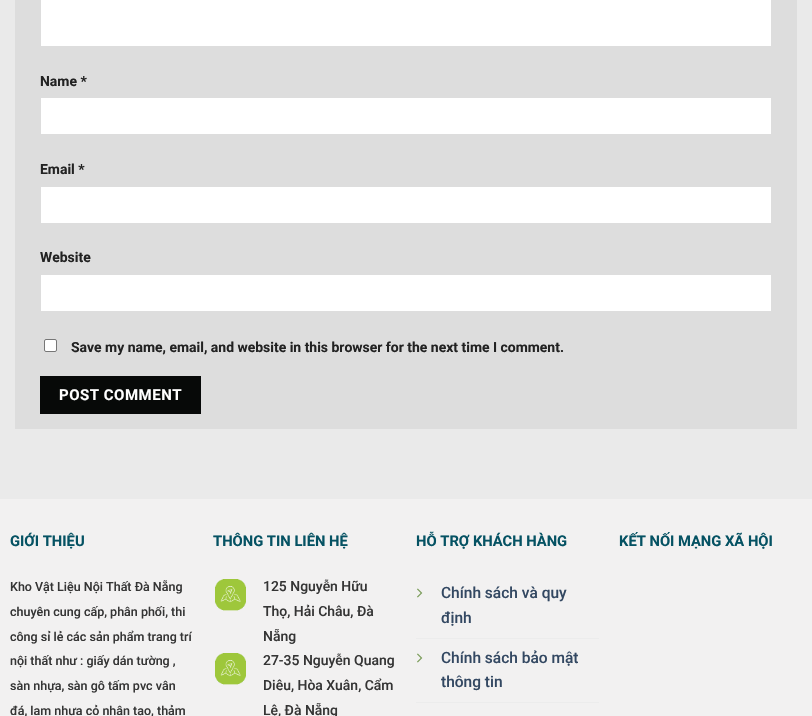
#include "include/core/SkBlurTypes.h"
#include "include/core/SkCanvas.h"
#include "include/core/SkData.h"
#include "include/core/SkFont.h"
#include "include/core/SkFontMgr.h"
#include "include/core/SkImage.h"
#include "include/core/SkMaskFilter.h"
#include "include/core/SkPaint.h"
#include "include/core/SkPathBuilder.h"
#include "include/core/SkTextBlob.h"
#include "include/effects/SkDashPathEffect.h"
#include "include/effects/SkGradientShader.h"
#include "include/utils/SkParsePath.h"

extern sk_sp<SkFontMgr> fontMgr;

static SkFont font(const char* family, int weight, float size, bool italic = false) {
    SkFontStyle style(weight, SkFontStyle::kNormal_Width,
        italic ? SkFontStyle::kItalic_Slant : SkFontStyle::kUpright_Slant);
    SkFont result(fontMgr->matchFamilyStyle(family, style), size);
    result.setSubpixel(true);
    return result;
}

static void drawLabel(SkCanvas* canvas, const char* s, float x, float y, const SkFont& font, SkColor color) {
    SkPaint ink(SkColor4f::FromColor(color));
    ink.setAntiAlias(true);
    canvas->drawString(s, x, y, font, ink);
}

static void drawTracked(SkCanvas* canvas, const char* s, float x, float y, const SkFont& font, const SkPaint& ink, float letter, float word) {
    std::vector<SkGlyphID> glyphs(font.countText(s, strlen(s), SkTextEncoding::kUTF8));
    std::vector<float> xs(glyphs.size());
    font.textToGlyphs(s, strlen(s), SkTextEncoding::kUTF8, glyphs);
    font.getXPos(glyphs, xs, x);
    float extra = 0;
    for (size_t i = 0; i < glyphs.size(); i++) {
        xs[i] += extra;
        extra += letter + word * (glyphs[i] == font.unicharToGlyph(' '));
    }
    canvas->drawTextBlob(SkTextBlob::MakeFromPosHGlyphs(glyphs, xs, y, font), 0, 0, ink);
}

static void fillRect(SkCanvas* canvas, float x, float y, float w, float h, SkColor color) {
    SkPaint ink(SkColor4f::FromColor(color));
    ink.setAntiAlias(true);
    canvas->drawRect(SkRect::MakeXYWH(x, y, w, h), ink);
}

static void drawPhoto(SkCanvas* canvas, const char* path, float x, float y, float w, float h) {
    auto image = SkImages::DeferredFromEncodedData(SkData::MakeFromFileName(path));
    canvas->drawImageRect(image, SkRect::MakeXYWH(x, y, w, h), SkSamplingOptions());
}

void draw(SkCanvas* canvas) {
    SkPaint paint;
    paint.setAntiAlias(true);
    canvas->clear(0xFFEAEAEA);
    fillRect(canvas, 15, 0, 782, 429, 0xFFDDDDDD);
    fillRect(canvas, 41, 0, 730, 46, 0xFFFFFFFF);
    SkFont font1 = font("Roboto", 700, 13.95f);
    drawLabel(canvas, "Name *", 40, 86, font1, 0xFF222222);
    fillRect(canvas, 41, 98, 730, 36, 0xFFFFFFFF);
    drawLabel(canvas, "Email *", 40, 174, font1, 0xFF222222);
    fillRect(canvas, 41, 187, 730, 36, 0xFFFFFFFF);
    drawLabel(canvas, "Website", 40, 262, font1, 0xFF222222);
    fillRect(canvas, 41, 275, 730, 36, 0xFFFFFFFF);
    paint.setColor(0xFFFFFFFF);
    canvas->drawRoundRect(SkRect::MakeXYWH(44.5f, 339.5f, 12, 12), 1.5f, 1.5f, paint);
    paint.setStroke(true);
    paint.setStrokeWidth(1);
    paint.setColor(0xFF767676);
    canvas->drawRoundRect(SkRect::MakeXYWH(44.5f, 339.5f, 12, 12), 1.5f, 1.5f, paint);
    drawLabel(canvas, "Save my name, email, and website in this browser for the next time I comment.", 71, 352, font1, 0xFF222222);
    fillRect(canvas, 40, 376, 161, 38, 0xFF070908);
    SkFont font2 = font("Roboto", 700, 15);
    paint.setStroke(false);
    paint.setColor(0xFFFFFFFF);
    drawTracked(canvas, "POST COMMENT", 59, 400, font2, paint, 0.5f, 0);
    fillRect(canvas, 0, 499, 812, 217, 0xFFF2F1F1);
    SkFont font3 = font("Roboto", 700, 14.75f);
    drawLabel(canvas, "GIỚI THIỆU", 10, 546, font3, 0xFF055263);
    SkFont font4 = font("Roboto", 500, 12.5f);
    drawLabel(canvas, "Kho Vật Liệu Nội Thất Đà Nẵng", 10, 591, font4, 0xFF353535);
    drawLabel(canvas, "chuyên cung cấp, phân phối, thi", 10, 616, font4, 0xFF353535);
    drawLabel(canvas, "công sỉ lẻ các sản phẩm trang trí", 10, 641, font4, 0xFF353535);
    drawLabel(canvas, "nội thất như : giấy dán tường ,", 10, 665, font4, 0xFF353535);
    drawLabel(canvas, "sàn nhựa, sàn gô tấm pvc vân", 10, 690, font4, 0xFF353535);
    drawLabel(canvas, "đá, lam nhựa cỏ nhân tạo, thảm", 10, 715, font4, 0xFF353535);
    drawLabel(canvas, "THÔNG TIN LIÊN HỆ", 213, 546, font3, 0xFF055263);
    drawPhoto(canvas, "assets/img1.png", 215, 579, 31, 32);
    SkFont font5 = font("Roboto", 500, 13.95f);
    drawLabel(canvas, "125 Nguyễn Hữu", 263, 591, font5, 0xFF353535);
    drawLabel(canvas, "Thọ, Hải Châu, Đà", 263, 616, font5, 0xFF353535);
    drawLabel(canvas, "Nẵng", 263, 641, font5, 0xFF353535);
    drawPhoto(canvas, "assets/img1.png", 215, 653, 31, 32);
    drawLabel(canvas, "27-35 Nguyễn Quang", 263, 665, font5, 0xFF353535);
    drawLabel(canvas, "Diêu, Hòa Xuân, Cẩm", 263, 690, font5, 0xFF353535);
    drawLabel(canvas, "Lệ, Đà Nẵng", 263, 715, font5, 0xFF353535);
    drawLabel(canvas, "HỖ TRỢ KHÁCH HÀNG", 416, 546, font3, 0xFF055263);
    fillRect(canvas, 416, 638, 183, 1, 0xFFECECEC);
    drawPhoto(canvas, "assets/img2.png", 417, 588, 6, 10);
    SkFont font6 = font("Roboto", 500, 15.5f);
    drawLabel(canvas, "Chính sách và quy", 441, 598, font6, 0xFF334862);
    drawLabel(canvas, "định", 441, 623, font6, 0xFF334862);
    fillRect(canvas, 416, 702, 183, 1, 0xFFECECEC);
    drawPhoto(canvas, "assets/img2.png", 417, 653, 6, 10);
    drawLabel(canvas, "Chính sách bảo mật", 441, 663, font6, 0xFF334862);
    drawLabel(canvas, "thông tin", 441, 687, font6, 0xFF334862);
    drawLabel(canvas, "KẾT NỐI MẠNG XÃ HỘI", 619, 546, font3, 0xFF055263);
}
